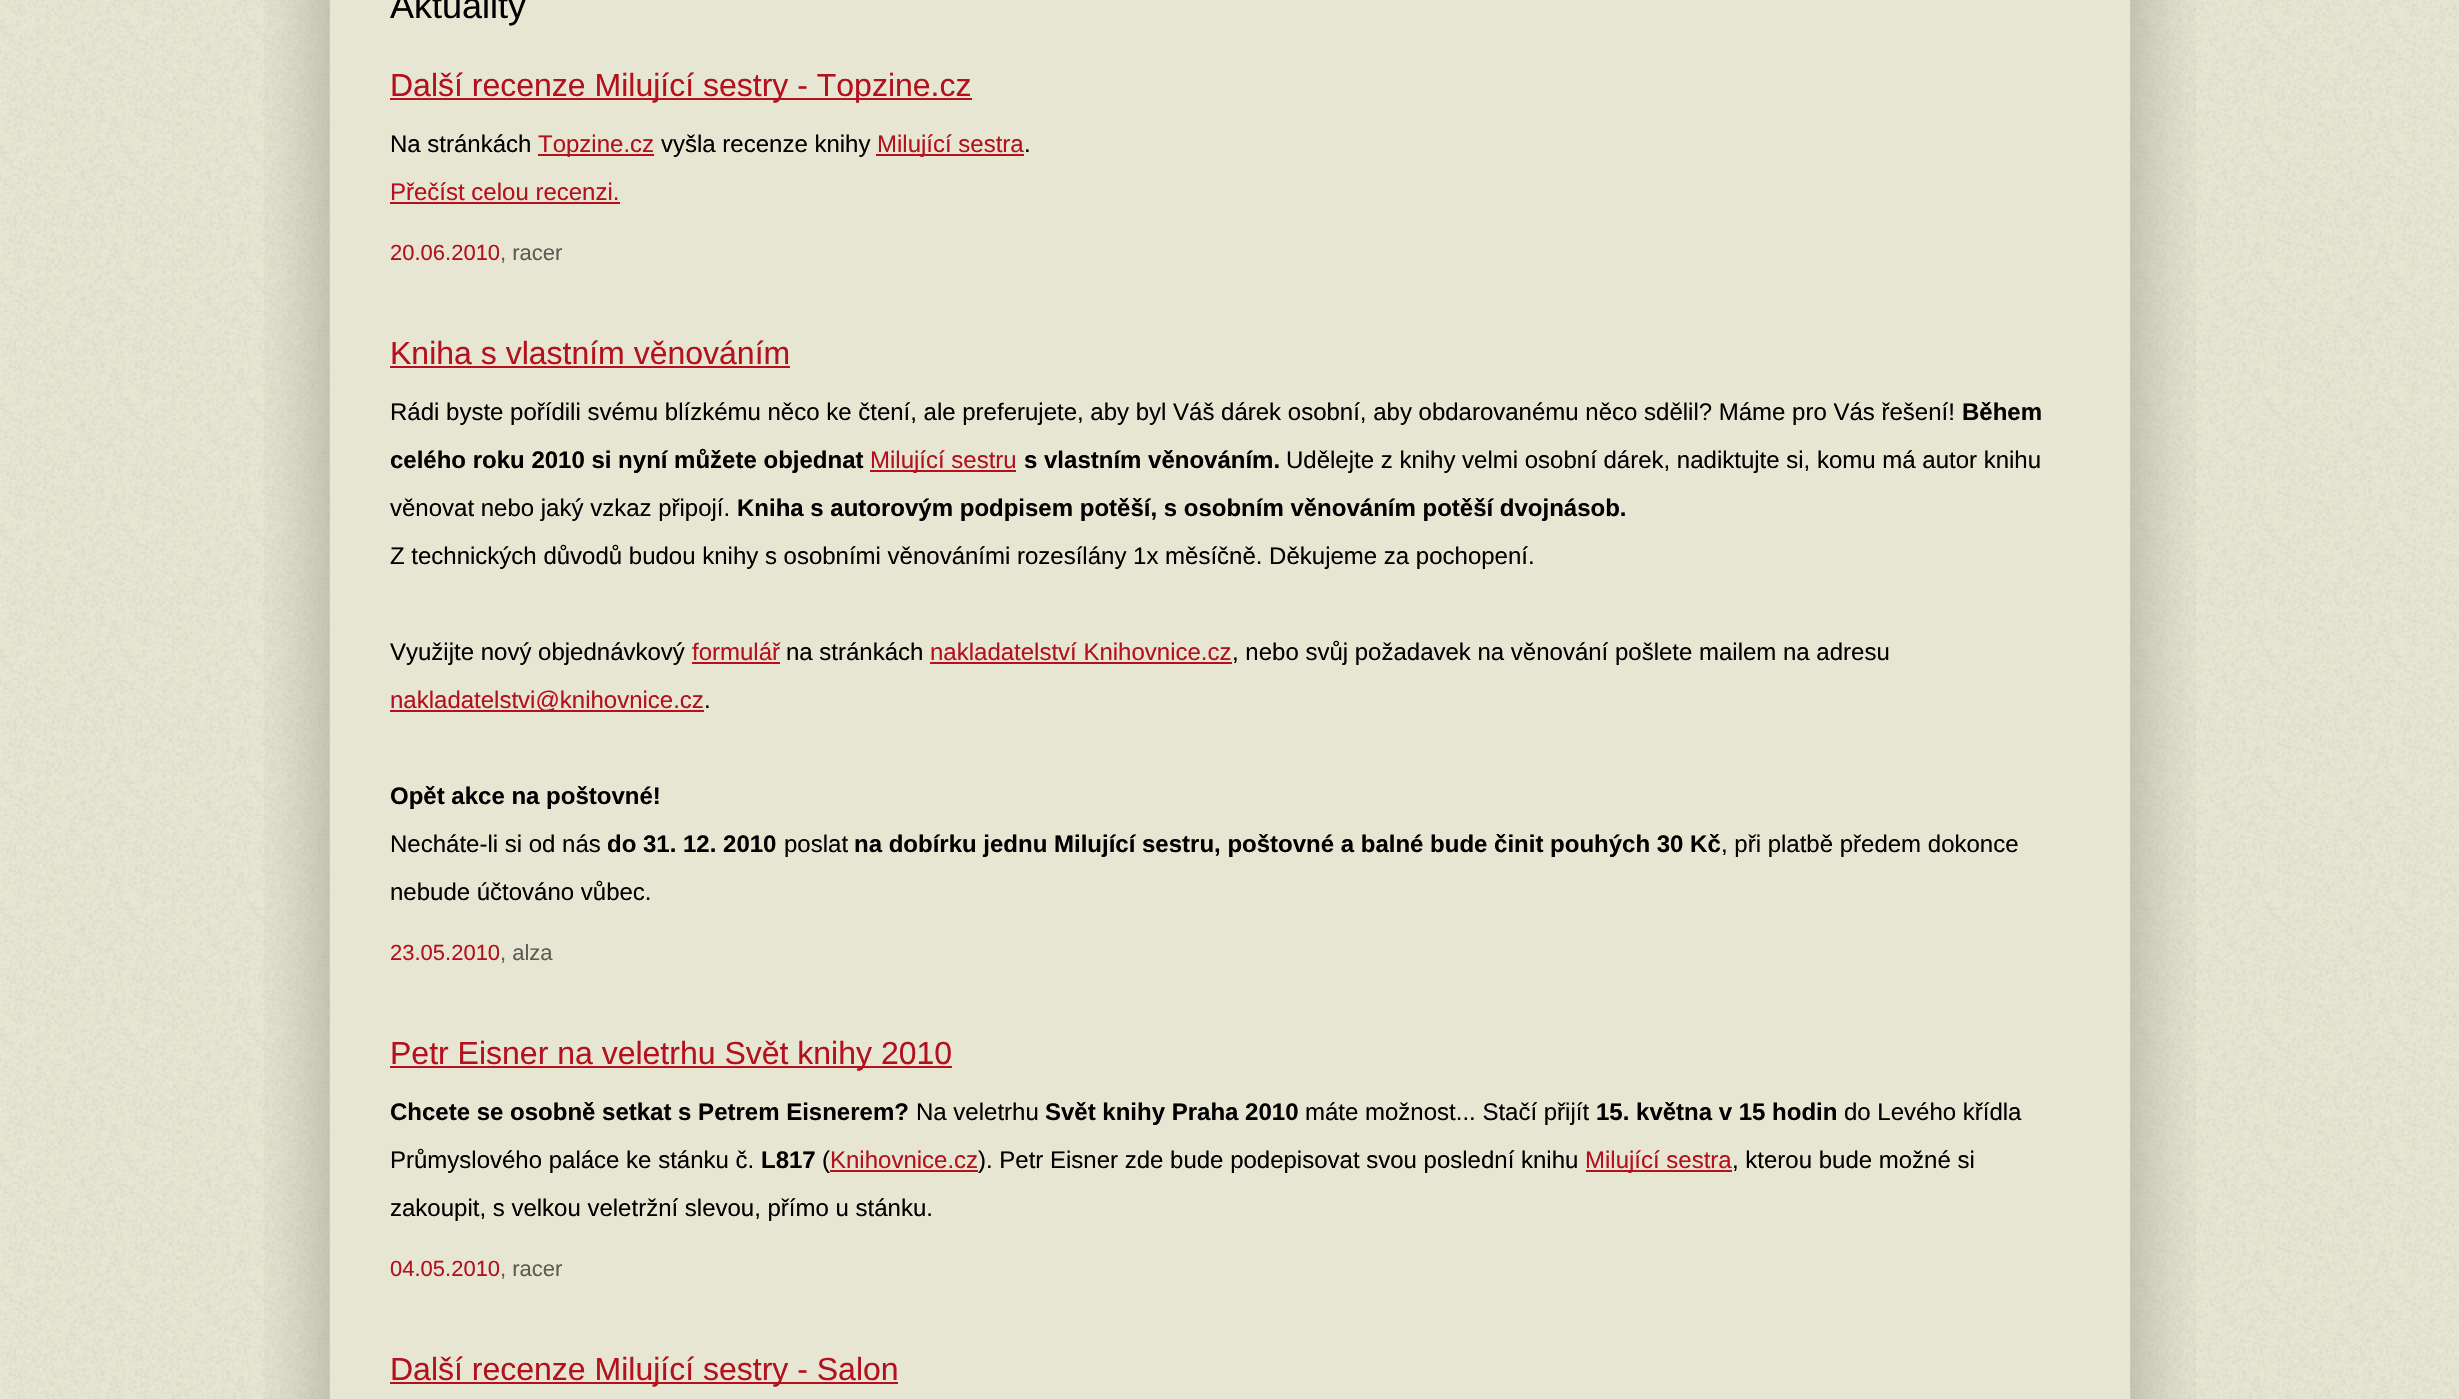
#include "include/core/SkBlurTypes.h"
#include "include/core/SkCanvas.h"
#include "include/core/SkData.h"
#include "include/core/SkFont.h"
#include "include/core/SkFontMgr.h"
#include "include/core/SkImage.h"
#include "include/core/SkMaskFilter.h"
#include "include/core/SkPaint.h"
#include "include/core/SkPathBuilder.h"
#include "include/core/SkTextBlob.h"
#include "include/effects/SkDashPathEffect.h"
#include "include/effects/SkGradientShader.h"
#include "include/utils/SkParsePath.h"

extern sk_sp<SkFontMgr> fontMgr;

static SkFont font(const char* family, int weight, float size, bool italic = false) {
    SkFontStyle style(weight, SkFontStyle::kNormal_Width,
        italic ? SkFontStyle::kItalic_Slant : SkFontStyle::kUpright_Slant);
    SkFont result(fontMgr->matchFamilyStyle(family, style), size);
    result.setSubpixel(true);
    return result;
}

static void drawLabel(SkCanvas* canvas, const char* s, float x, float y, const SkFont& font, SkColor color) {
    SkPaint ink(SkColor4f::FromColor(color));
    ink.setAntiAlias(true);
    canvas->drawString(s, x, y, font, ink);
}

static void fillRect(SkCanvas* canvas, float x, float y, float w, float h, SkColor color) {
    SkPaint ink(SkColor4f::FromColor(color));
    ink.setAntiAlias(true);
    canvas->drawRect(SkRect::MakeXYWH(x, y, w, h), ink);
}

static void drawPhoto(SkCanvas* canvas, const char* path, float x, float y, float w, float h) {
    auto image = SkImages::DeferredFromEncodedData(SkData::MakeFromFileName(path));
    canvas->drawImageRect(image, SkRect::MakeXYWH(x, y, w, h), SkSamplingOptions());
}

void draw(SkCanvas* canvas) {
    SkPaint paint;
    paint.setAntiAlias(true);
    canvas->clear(0xFFFFFFFF);
    drawPhoto(canvas, "assets/img1.png", 0, 0, 2459, 1399);
    drawPhoto(canvas, "assets/img2.png", 264, 0, 1932, 1399);
    fillRect(canvas, 330, 0, 1800, 1399, 0xFFE7E6D3);
    SkFont font1 = font("Liberation Sans", 400, 36);
    drawLabel(canvas, "Aktuality", 390, 18, font1, 0xFF000000);
    fillRect(canvas, 390, 98, 582, 2, 0xFFB3111D);
    SkFont font2 = font("Liberation Sans", 400, 32);
    drawLabel(canvas, "Další recenze Milující sestry - Topzine.cz", 390, 96, font2, 0xFFB3111D);
    SkFont font3 = font("Liberation Sans", 400, 24);
    drawLabel(canvas, "Na stránkách", 390, 152, font3, 0xFF000000);
    fillRect(canvas, 538, 154, 116, 2, 0xFFB3111D);
    drawLabel(canvas, "Topzine.cz", 538, 152, font3, 0xFFB3111D);
    drawLabel(canvas, "vyšla recenze knihy", 661, 152, font3, 0xFF000000);
    fillRect(canvas, 876, 154, 148, 2, 0xFFB3111D);
    drawLabel(canvas, "Milující sestra", 877, 152, font3, 0xFFB3111D);
    drawLabel(canvas, ".", 1024, 152, font3, 0xFF000000);
    drawLabel(canvas, "Přečíst celou recenzi.", 390, 200, font3, 0xFFB3111D);
    fillRect(canvas, 390, 202, 230, 2, 0xFFB3111D);
    SkFont font4 = font("Liberation Sans", 400, 22);
    drawLabel(canvas, "20.06.2010", 390, 260, font4, 0xFFB3111D);
    drawLabel(canvas, ", racer", 500, 260, font4, 0xFF5B5B53);
    drawLabel(canvas, "Kniha s vlastním věnováním", 390, 364, font2, 0xFFB3111D);
    fillRect(canvas, 390, 366, 400, 2, 0xFFB3111D);
    drawLabel(canvas, "Rádi byste pořídili svému blízkému něco ke čtení, ale preferujete, aby byl Váš dárek osobní, aby obdarovanému něco sdělil? Máme pro Vás řešení!", 390, 420, font3, 0xFF000000);
    SkFont font5 = font("Liberation Sans", 700, 24);
    drawLabel(canvas, "Během", 1962, 420, font5, 0xFF000000);
    drawLabel(canvas, "celého roku 2010 si nyní můžete objednat", 390, 468, font5, 0xFF000000);
    fillRect(canvas, 870, 470, 146, 2, 0xFFB3111D);
    drawLabel(canvas, "Milující sestru", 870, 468, font3, 0xFFB3111D);
    drawLabel(canvas, "s vlastním věnováním.", 1024, 468, font5, 0xFF000000);
    drawLabel(canvas, "Udělejte z knihy velmi osobní dárek, nadiktujte si, komu má autor knihu", 1286, 468, font3, 0xFF000000);
    drawLabel(canvas, "věnovat nebo jaký vzkaz připojí.", 390, 516, font3, 0xFF000000);
    drawLabel(canvas, "Kniha s autorovým podpisem potěší, s osobním věnováním potěší dvojnásob.", 737, 516, font5, 0xFF000000);
    drawLabel(canvas, "Z technických důvodů budou knihy s osobními věnováními rozesílány 1x měsíčně. Děkujeme za pochopení.", 390, 564, font3, 0xFF000000);
    drawLabel(canvas, "Využijte nový objednávkový", 390, 660, font3, 0xFF000000);
    drawLabel(canvas, "formulář", 692, 660, font3, 0xFFB3111D);
    fillRect(canvas, 692, 662, 88, 2, 0xFFB3111D);
    drawLabel(canvas, "na stránkách", 786, 660, font3, 0xFF000000);
    drawLabel(canvas, "nakladatelství Knihovnice.cz", 930, 660, font3, 0xFFB3111D);
    fillRect(canvas, 930, 662, 302, 2, 0xFFB3111D);
    drawLabel(canvas, ", nebo svůj požadavek na věnování pošlete mailem na adresu", 1232, 660, font3, 0xFF000000);
    fillRect(canvas, 390, 710, 314, 2, 0xFFB3111D);
    drawLabel(canvas, "nakladatelstvi@knihovnice.cz", 390, 708, font3, 0xFFB3111D);
    drawLabel(canvas, ".", 704, 708, font3, 0xFF000000);
    drawLabel(canvas, "Opět akce na poštovné!", 390, 804, font5, 0xFF000000);
    drawLabel(canvas, "Necháte-li si od nás", 390, 852, font3, 0xFF000000);
    drawLabel(canvas, "do 31. 12. 2010", 607, 852, font5, 0xFF000000);
    drawLabel(canvas, "poslat", 784, 852, font3, 0xFF000000);
    drawLabel(canvas, "na dobírku jednu Milující sestru, poštovné a balné bude činit pouhých 30 Kč", 854, 852, font5, 0xFF000000);
    drawLabel(canvas, ", při platbě předem dokonce", 1721, 852, font3, 0xFF000000);
    drawLabel(canvas, "nebude účtováno vůbec.", 390, 900, font3, 0xFF000000);
    drawLabel(canvas, "23.05.2010", 390, 960, font4, 0xFFB3111D);
    drawLabel(canvas, ", alza", 500, 960, font4, 0xFF5B5B53);
    fillRect(canvas, 390, 1066, 562, 2, 0xFFB3111D);
    drawLabel(canvas, "Petr Eisner na veletrhu Svět knihy 2010", 390, 1064, font2, 0xFFB3111D);
    drawLabel(canvas, "Chcete se osobně setkat s Petrem Eisnerem?", 390, 1120, font5, 0xFF000000);
    drawLabel(canvas, "Na veletrhu", 916, 1120, font3, 0xFF000000);
    drawLabel(canvas, "Svět knihy Praha 2010", 1045, 1120, font5, 0xFF000000);
    drawLabel(canvas, "máte možnost... Stačí přijít", 1305, 1120, font3, 0xFF000000);
    drawLabel(canvas, "15. května v 15 hodin", 1596, 1120, font5, 0xFF000000);
    drawLabel(canvas, "do Levého křídla", 1844, 1120, font3, 0xFF000000);
    drawLabel(canvas, "Průmyslového paláce ke stánku č.", 390, 1168, font3, 0xFF000000);
    drawLabel(canvas, "L817", 761, 1168, font5, 0xFF000000);
    drawLabel(canvas, "(", 822, 1168, font3, 0xFF000000);
    drawLabel(canvas, "Knihovnice.cz", 830, 1168, font3, 0xFFB3111D);
    fillRect(canvas, 830, 1170, 148, 2, 0xFFB3111D);
    drawLabel(canvas, "). Petr Eisner zde bude podepisovat svou poslední knihu", 978, 1168, font3, 0xFF000000);
    fillRect(canvas, 1586, 1170, 146, 2, 0xFFB3111D);
    drawLabel(canvas, "Milující sestra", 1585, 1168, font3, 0xFFB3111D);
    drawLabel(canvas, ", kterou bude možné si", 1732, 1168, font3, 0xFF000000);
    drawLabel(canvas, "zakoupit, s velkou veletržní slevou, přímo u stánku.", 390, 1216, font3, 0xFF000000);
    drawLabel(canvas, "04.05.2010", 390, 1276, font4, 0xFFB3111D);
    drawLabel(canvas, ", racer", 500, 1276, font4, 0xFF5B5B53);
    fillRect(canvas, 390, 1382, 508, 2, 0xFFB3111D);
    drawLabel(canvas, "Další recenze Milující sestry - Salon", 390, 1380, font2, 0xFFB3111D);
}
